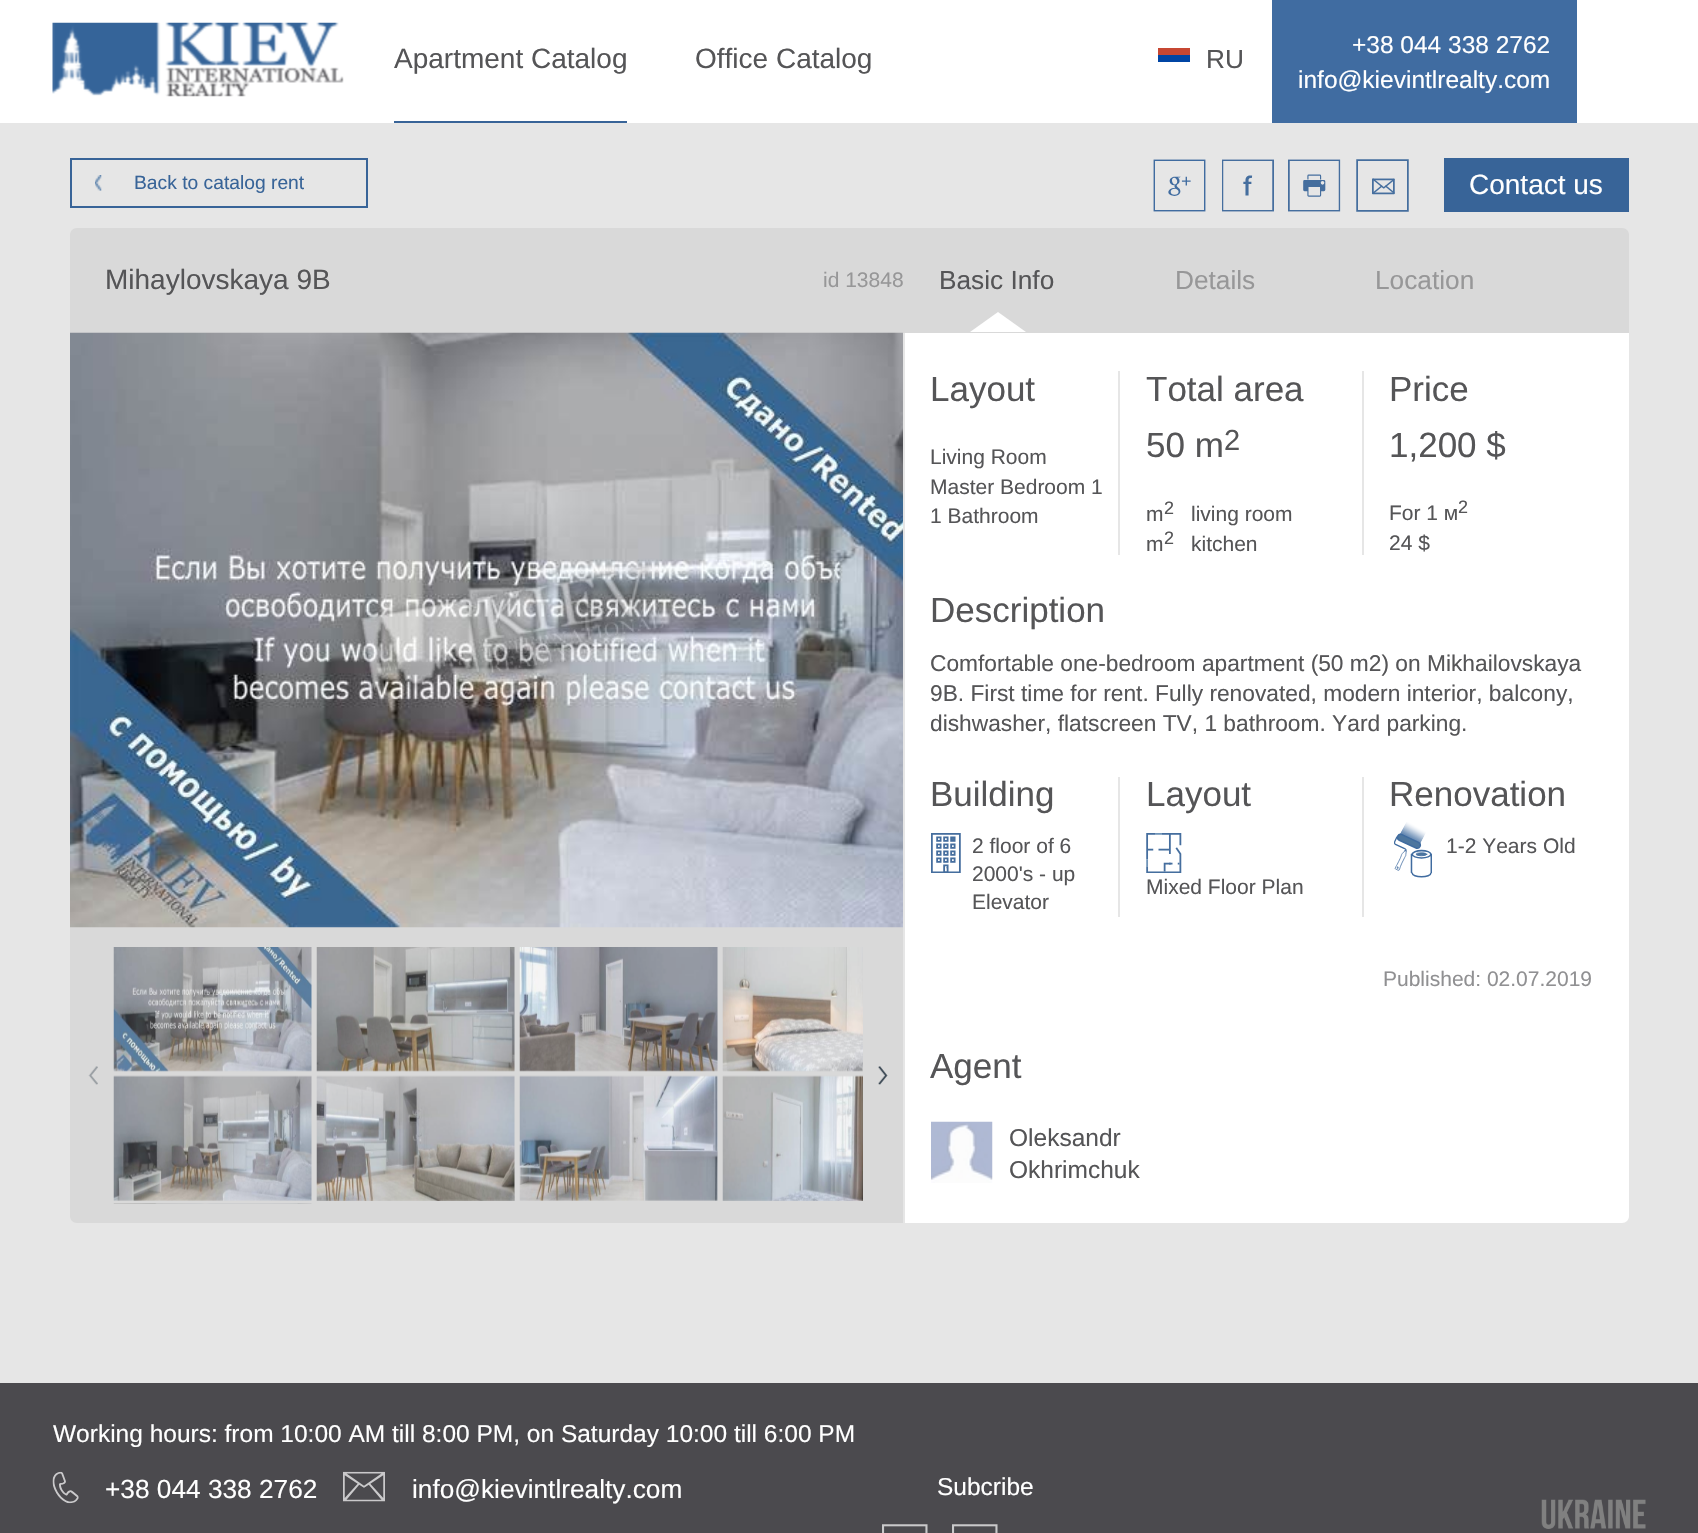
#include "include/core/SkBlurTypes.h"
#include "include/core/SkCanvas.h"
#include "include/core/SkData.h"
#include "include/core/SkFont.h"
#include "include/core/SkFontMgr.h"
#include "include/core/SkImage.h"
#include "include/core/SkMaskFilter.h"
#include "include/core/SkPaint.h"
#include "include/core/SkPathBuilder.h"
#include "include/core/SkTextBlob.h"
#include "include/effects/SkDashPathEffect.h"
#include "include/effects/SkGradientShader.h"
#include "include/utils/SkParsePath.h"

extern sk_sp<SkFontMgr> fontMgr;

static SkFont font(const char* family, int weight, float size, bool italic = false) {
    SkFontStyle style(weight, SkFontStyle::kNormal_Width,
        italic ? SkFontStyle::kItalic_Slant : SkFontStyle::kUpright_Slant);
    SkFont result(fontMgr->matchFamilyStyle(family, style), size);
    result.setSubpixel(true);
    return result;
}

static void drawLabel(SkCanvas* canvas, const char* s, float x, float y, const SkFont& font, SkColor color) {
    SkPaint ink(SkColor4f::FromColor(color));
    ink.setAntiAlias(true);
    canvas->drawString(s, x, y, font, ink);
}

static void fillRect(SkCanvas* canvas, float x, float y, float w, float h, SkColor color) {
    SkPaint ink(SkColor4f::FromColor(color));
    ink.setAntiAlias(true);
    canvas->drawRect(SkRect::MakeXYWH(x, y, w, h), ink);
}

static void drawPhoto(SkCanvas* canvas, const char* path, float x, float y, float w, float h) {
    auto image = SkImages::DeferredFromEncodedData(SkData::MakeFromFileName(path));
    canvas->drawImageRect(image, SkRect::MakeXYWH(x, y, w, h), SkSamplingOptions());
}

static SkPath parsePath(const char* data, bool evenOdd = false) {
    SkPath result = *SkParsePath::FromSVGString(data);
    if (evenOdd) result.setFillType(SkPathFillType::kEvenOdd);
    return result;
}

void draw(SkCanvas* canvas) {
    SkPaint paint;
    paint.setAntiAlias(true);
    canvas->clear(0xFFE6E6E6);
    fillRect(canvas, 0, 0, 1698, 123, 0xFFFFFFFF);
    drawPhoto(canvas, "assets/img1.png", 52, 22, 292, 75);
    fillRect(canvas, 394, 121, 233, 2, 0xFF386498);
    SkFont font1 = font("Liberation Sans", 400, 28);
    drawLabel(canvas, "Apartment Catalog", 394, 68, font1, 0xFF555557);
    drawLabel(canvas, "Office Catalog", 695, 68, font1, 0xFF555557);
    fillRect(canvas, 1158, 55, 32, 7, 0xFF0045A4);
    fillRect(canvas, 1158, 48, 32, 7, 0xFFC74732);
    SkFont font2 = font("Liberation Sans", 400, 26.25f);
    drawLabel(canvas, "RU", 1206, 68, font2, 0xFF555557);
    fillRect(canvas, 1272, 0, 305, 123, 0xFF406CA1);
    SkFont font3 = font("Liberation Sans", 400, 24.5f);
    drawLabel(canvas, "+38 044 338 2762", 1352, 53, font3, 0xFFFFFFFF);
    drawLabel(canvas, "info@kievintlrealty.com", 1298, 88, font3, 0xFFFFFFFF);
    paint.setStroke(true);
    paint.setStrokeWidth(2);
    paint.setColor(0xFF386498);
    canvas->drawRect(SkRect::MakeXYWH(71, 159, 296, 48), paint);
    drawPhoto(canvas, "assets/img2.png", 95, 175, 7, 16);
    SkFont font4 = font("Liberation Sans", 400, 19.25f);
    drawLabel(canvas, "Back to catalog rent", 134, 189, font4, 0xFF386498);
    drawPhoto(canvas, "assets/img3.png", 1153, 159, 53, 53);
    drawPhoto(canvas, "assets/img4.png", 1222, 159, 52, 53);
    drawPhoto(canvas, "assets/img5.png", 1288, 159, 53, 53);
    drawPhoto(canvas, "assets/img6.png", 1356, 159, 53, 53);
    fillRect(canvas, 1444, 158, 185, 54, 0xFF386498);
    drawLabel(canvas, "Contact us", 1469, 194, font1, 0xFFFFFFFF);
    paint.setStroke(false);
    paint.setColor(0xFFD9D9D9);
    canvas->drawPath(parsePath("M77 228H1622C1626 228 1629 231 1629 235V333H70V235C70 231 73 228 77 228Z"), paint);
    drawLabel(canvas, "Mihaylovskaya 9B", 105, 289, font1, 0xFF555557);
    SkFont font5 = font("Liberation Sans", 400, 21);
    drawLabel(canvas, "id 13848", 823, 287, font5, 0xFF979798);
    drawLabel(canvas, "Basic Info", 939, 289, font2, 0xFF555557);
    paint.setColor(0xFFFFFFFF);
    canvas->drawPath(parsePath("M1026 332H970L998 312Z"), paint);
    drawLabel(canvas, "Details", 1175, 289, font2, 0xFF979798);
    drawLabel(canvas, "Location", 1375, 289, font2, 0xFF979798);
    paint.setColor(0xFFD9D9D9);
    canvas->drawPath(parsePath("M70 333H903V1223H77C73 1223 70 1220 70 1216Z"), paint);
    drawPhoto(canvas, "assets/img7.png", 70, 332, 833, 596);
    drawPhoto(canvas, "assets/img8.png", 88, 1066, 10, 19);
    drawPhoto(canvas, "assets/img9.png", 113, 947, 199, 125);
    drawPhoto(canvas, "assets/img10.png", 113, 1075, 199, 126);
    drawPhoto(canvas, "assets/img11.png", 316, 947, 199, 125);
    drawPhoto(canvas, "assets/img12.png", 316, 1075, 199, 126);
    drawPhoto(canvas, "assets/img13.png", 519, 947, 199, 125);
    drawPhoto(canvas, "assets/img14.png", 519, 1075, 199, 126);
    drawPhoto(canvas, "assets/img15.png", 722, 947, 141, 125);
    drawPhoto(canvas, "assets/img16.png", 722, 1075, 141, 126);
    drawPhoto(canvas, "assets/img17.png", 113, 1203, 199, 1);
    drawPhoto(canvas, "assets/img18.png", 878, 1066, 10, 19);
    paint.setColor(0xFFFFFFFF);
    canvas->drawPath(parsePath("M905 333H1629V1216C1629 1220 1626 1223 1622 1223H905Z"), paint);
    SkFont font6 = font("Liberation Sans", 400, 35);
    drawLabel(canvas, "Layout", 930, 401, font6, 0xFF555557);
    drawLabel(canvas, "Living Room", 930, 464, font5, 0xFF555557);
    drawLabel(canvas, "Master Bedroom 1", 930, 494, font5, 0xFF555557);
    drawLabel(canvas, "1 Bathroom", 930, 523, font5, 0xFF555557);
    fillRect(canvas, 1362, 371, 2, 184, 0xFFE6E6E6);
    fillRect(canvas, 1118, 371, 2, 184, 0xFFE6E6E6);
    drawLabel(canvas, "Total area", 1146, 401, font6, 0xFF555557);
    drawLabel(canvas, "50 m", 1146, 457, font6, 0xFF555557);
    SkFont font7 = font("Liberation Sans", 400, 29);
    drawLabel(canvas, "2", 1224, 450, font7, 0xFF555557);
    drawLabel(canvas, "m", 1146, 521, font5, 0xFF555557);
    SkFont font8 = font("Liberation Sans", 400, 18);
    drawLabel(canvas, "2", 1164, 514, font8, 0xFF555557);
    drawLabel(canvas, "living room", 1191, 521, font5, 0xFF555557);
    drawLabel(canvas, "m", 1146, 551, font5, 0xFF555557);
    drawLabel(canvas, "2", 1164, 544, font8, 0xFF555557);
    drawLabel(canvas, "kitchen", 1191, 551, font5, 0xFF555557);
    drawLabel(canvas, "Price", 1389, 401, font6, 0xFF555557);
    drawLabel(canvas, "1,200 $", 1389, 457, font6, 0xFF555557);
    drawLabel(canvas, "For 1 м", 1389, 520, font5, 0xFF555557);
    drawLabel(canvas, "2", 1458, 513, font8, 0xFF555557);
    drawLabel(canvas, "24 $", 1389, 550, font5, 0xFF555557);
    drawLabel(canvas, "Description", 930, 622, font6, 0xFF555557);
    SkFont font9 = font("Liberation Sans", 400, 22.75f);
    drawLabel(canvas, "Comfortable one-bedroom apartment (50 m2) on Mikhailovskaya", 930, 671, font9, 0xFF555557);
    drawLabel(canvas, "9B. First time for rent. Fully renovated, modern interior, balcony,", 930, 701, font9, 0xFF555557);
    drawLabel(canvas, "dishwasher, flatscreen TV, 1 bathroom. Yard parking.", 930, 731, font9, 0xFF555557);
    drawLabel(canvas, "Building", 930, 806, font6, 0xFF555557);
    drawPhoto(canvas, "assets/img19.png", 931, 833, 30, 40);
    drawLabel(canvas, "2 floor of 6", 972, 853, font5, 0xFF555557);
    drawLabel(canvas, "2000's - up", 972, 881, font5, 0xFF555557);
    drawLabel(canvas, "Elevator", 972, 909, font5, 0xFF555557);
    fillRect(canvas, 1362, 777, 2, 140, 0xFFE6E6E6);
    fillRect(canvas, 1118, 777, 2, 140, 0xFFE6E6E6);
    drawLabel(canvas, "Layout", 1146, 806, font6, 0xFF555557);
    drawPhoto(canvas, "assets/img20.png", 1146, 833, 36, 40);
    drawLabel(canvas, "Mixed Floor Plan", 1146, 894, font5, 0xFF555557);
    drawLabel(canvas, "Renovation", 1389, 806, font6, 0xFF555557);
    drawPhoto(canvas, "assets/img21.png", 1394, 822, 38, 56);
    drawLabel(canvas, "1-2 Years Old", 1446, 853, font5, 0xFF555557);
    drawLabel(canvas, "Published: 02.07.2019", 1383, 986, font5, 0xFF909092);
    drawLabel(canvas, "Agent", 930, 1078, font6, 0xFF555557);
    drawPhoto(canvas, "assets/img22.png", 931, 1121, 62, 62);
    drawLabel(canvas, "Oleksandr", 1009, 1146, font3, 0xFF555557);
    drawLabel(canvas, "Okhrimchuk", 1009, 1178, font3, 0xFF555557);
    fillRect(canvas, 0, 1383, 1698, 150, 0xFF4B4A4E);
    drawLabel(canvas, "Working hours: from 10:00 AM till 8:00 PM, on Saturday 10:00 till 6:00 PM", 53, 1442, font3, 0xFFFFFFFF);
    drawPhoto(canvas, "assets/img23.png", 52, 1471, 27, 33);
    drawLabel(canvas, "+38 044 338 2762", 105, 1498, font2, 0xFFFFFFFF);
    drawPhoto(canvas, "assets/img24.png", 343, 1471, 42, 31);
    drawLabel(canvas, "info@kievintlrealty.com", 412, 1498, font2, 0xFFFFFFFF);
    drawLabel(canvas, "Subcribe", 937, 1495, font3, 0xFFFFFFFF);
    drawPhoto(canvas, "assets/img25.png", 882, 1524, 46, 9);
    drawPhoto(canvas, "assets/img25.png", 952, 1524, 46, 9);
    drawPhoto(canvas, "assets/img26.png", 1541, 1499, 105, 30);
}
